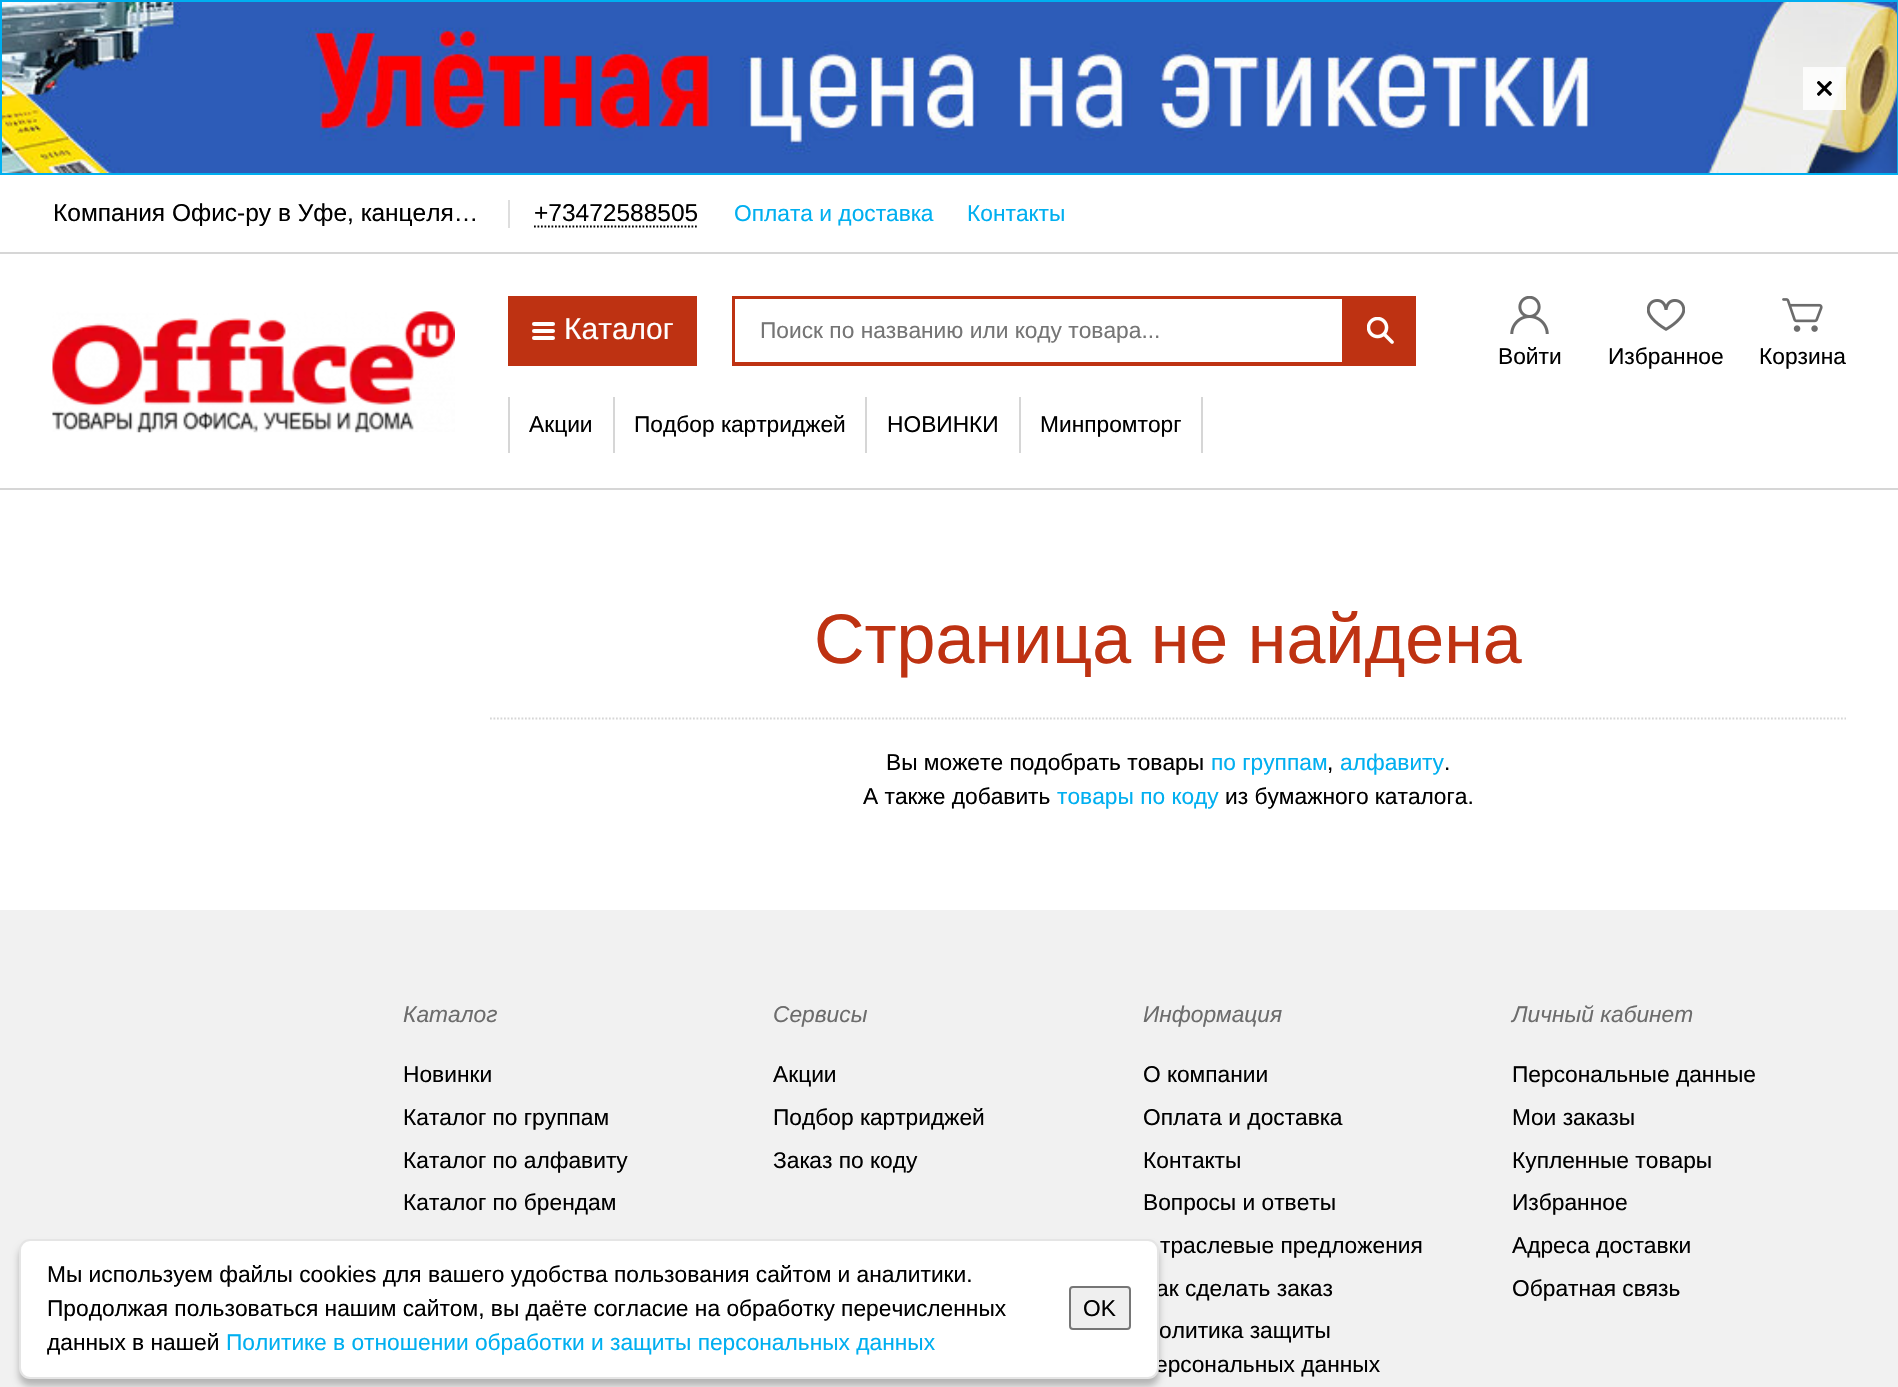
#include "include/core/SkBlurTypes.h"
#include "include/core/SkCanvas.h"
#include "include/core/SkData.h"
#include "include/core/SkFont.h"
#include "include/core/SkFontMgr.h"
#include "include/core/SkImage.h"
#include "include/core/SkMaskFilter.h"
#include "include/core/SkPaint.h"
#include "include/core/SkPathBuilder.h"
#include "include/core/SkTextBlob.h"
#include "include/effects/SkDashPathEffect.h"
#include "include/effects/SkGradientShader.h"
#include "include/utils/SkParsePath.h"

extern sk_sp<SkFontMgr> fontMgr;

static SkFont font(const char* family, int weight, float size, bool italic = false) {
    SkFontStyle style(weight, SkFontStyle::kNormal_Width,
        italic ? SkFontStyle::kItalic_Slant : SkFontStyle::kUpright_Slant);
    SkFont result(fontMgr->matchFamilyStyle(family, style), size);
    result.setSubpixel(true);
    return result;
}

static void drawLabel(SkCanvas* canvas, const char* s, float x, float y, const SkFont& font, SkColor color) {
    SkPaint ink(SkColor4f::FromColor(color));
    ink.setAntiAlias(true);
    canvas->drawString(s, x, y, font, ink);
}

static void fillRect(SkCanvas* canvas, float x, float y, float w, float h, SkColor color) {
    SkPaint ink(SkColor4f::FromColor(color));
    ink.setAntiAlias(true);
    canvas->drawRect(SkRect::MakeXYWH(x, y, w, h), ink);
}

static void fillRRect(SkCanvas* canvas, float x, float y, float w, float h, float radius, SkColor color) {
    SkPaint ink(SkColor4f::FromColor(color));
    ink.setAntiAlias(true);
    canvas->drawRoundRect(SkRect::MakeXYWH(x, y, w, h), radius, radius, ink);
}

static void drawPhoto(SkCanvas* canvas, const char* path, float x, float y, float w, float h) {
    auto image = SkImages::DeferredFromEncodedData(SkData::MakeFromFileName(path));
    canvas->drawImageRect(image, SkRect::MakeXYWH(x, y, w, h), SkSamplingOptions());
}

static SkPath parsePath(const char* data, bool evenOdd = false) {
    SkPath result = *SkParsePath::FromSVGString(data);
    if (evenOdd) result.setFillType(SkPathFillType::kEvenOdd);
    return result;
}

void draw(SkCanvas* canvas) {
    SkPaint paint;
    paint.setAntiAlias(true);
    canvas->clear(0xFFFFFFFF);
    drawPhoto(canvas, "assets/img1.png", 2, 2, 1895, 171);
    paint.setStroke(true);
    paint.setStrokeWidth(2);
    paint.setColor(0xFF00AFF0);
    canvas->drawRect(SkRect::MakeXYWH(1, 1, 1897, 173), paint);
    fillRect(canvas, 1803, 67, 43, 43, 0xCCFFFFFF);
    drawPhoto(canvas, "assets/img2.png", 1817, 81, 15, 15);
    fillRect(canvas, 0, 252, 1898, 2, 0xFFD6D6D6);
    SkFont font1 = font("Liberation Sans", 400, 24.5f);
    drawLabel(canvas, "Компания Офис-ру в Уфе, канцеля…", 53, 221, font1, 0xFF000000);
    fillRect(canvas, 508, 200, 2, 28, 0xFFDEDEDE);
    drawLabel(canvas, "+73472588505", 534, 221, font1, 0xFF000000);
    paint.setStrokeWidth(1.8f);
    paint.setColor(0xFF000000);
    paint.setPathEffect(SkDashPathEffect::Make({{1.75f, 1.75f}}, 0));
    canvas->drawPath(parsePath("M534 226.5H698"), paint);
    paint.setPathEffect(nullptr);
    SkFont font2 = font("Liberation Sans", 400, 22.75f);
    drawLabel(canvas, "Оплата и доставка", 734, 221, font2, 0xFF00AFF0);
    drawLabel(canvas, "Контакты", 967, 221, font2, 0xFF00AFF0);
    fillRect(canvas, 0, 488, 1898, 2, 0xFFD6D6D6);
    drawPhoto(canvas, "assets/img3.png", 52, 311, 403, 122);
    fillRect(canvas, 508, 296, 189, 70, 0xFFBE3212);
    fillRRect(canvas, 532, 329, 23, 4, 2, 0xFFFFFFFF);
    fillRRect(canvas, 532, 322, 23, 4, 2, 0xFFFFFFFF);
    fillRRect(canvas, 532, 336, 23, 4, 2, 0xFFFFFFFF);
    SkFont font3 = font("Liberation Sans", 400, 30);
    drawLabel(canvas, "Каталог", 564, 339, font3, 0xFFFFFFFF);
    paint.setStrokeWidth(4);
    paint.setColor(0xFFBE3212);
    canvas->drawRect(SkRect::MakeXYWH(734, 298, 680, 66), paint);
    fillRect(canvas, 735, 299, 607, 63, 0xFFFFFFFF);
    drawLabel(canvas, "Поиск по названию или коду товара...", 760, 338, font2, 0xFF757575);
    fillRect(canvas, 1342, 300, 70, 62, 0xFFBE3212);
    drawPhoto(canvas, "assets/img4.png", 1367, 317, 27, 27);
    drawPhoto(canvas, "assets/img5.png", 1510, 296, 39, 38);
    drawLabel(canvas, "Войти", 1498, 364, font2, 0xFF000000);
    drawPhoto(canvas, "assets/img6.png", 1647, 299, 38, 32);
    drawLabel(canvas, "Избранное", 1608, 364, font2, 0xFF000000);
    drawPhoto(canvas, "assets/img7.png", 1782, 298, 41, 34);
    drawLabel(canvas, "Корзина", 1759, 364, font2, 0xFF000000);
    fillRect(canvas, 613, 397, 2, 56, 0xFFD6D6D6);
    fillRect(canvas, 508, 397, 2, 56, 0xFFD6D6D6);
    drawLabel(canvas, "Акции", 529, 432, font2, 0xFF000000);
    fillRect(canvas, 865, 397, 2, 56, 0xFFD6D6D6);
    drawLabel(canvas, "Подбор картриджей", 634, 432, font2, 0xFF000000);
    fillRect(canvas, 1019, 397, 2, 56, 0xFFD6D6D6);
    drawLabel(canvas, "НОВИНКИ", 887, 432, font2, 0xFF000000);
    fillRect(canvas, 1201, 397, 2, 56, 0xFFD6D6D6);
    drawLabel(canvas, "Минпромторг", 1040, 432, font2, 0xFF000000);
    SkFont font4 = font("Liberation Sans", 400, 70);
    drawLabel(canvas, "Страница не найдена", 814, 663, font4, 0xFFBE3212);
    paint.setStrokeWidth(1.8f);
    paint.setColor(0xFFD6D6D6);
    paint.setPathEffect(SkDashPathEffect::Make({{1.75f, 1.75f}}, 0));
    canvas->drawPath(parsePath("M490 718.5H1846"), paint);
    paint.setPathEffect(nullptr);
    drawLabel(canvas, "Вы можете подобрать товары", 886, 770, font2, 0xFF000000);
    drawLabel(canvas, "по группам", 1211, 770, font2, 0xFF00AFF0);
    drawLabel(canvas, ",", 1327, 770, font2, 0xFF000000);
    drawLabel(canvas, "алфавиту", 1340, 770, font2, 0xFF00AFF0);
    drawLabel(canvas, ".", 1444, 770, font2, 0xFF000000);
    drawLabel(canvas, "А также добавить", 863, 804, font2, 0xFF000000);
    drawLabel(canvas, "товары по коду", 1057, 804, font2, 0xFF00AFF0);
    drawLabel(canvas, "из бумажного каталога.", 1225, 804, font2, 0xFF000000);
    fillRect(canvas, 0, 910, 1898, 477, 0xFFF1F1F1);
    SkFont font5 = font("Liberation Sans", 400, 22.75f, true);
    drawLabel(canvas, "Каталог", 403, 1022, font5, 0xFF6C6C6C);
    drawLabel(canvas, "Новинки", 403, 1082, font2, 0xFF000000);
    drawLabel(canvas, "Каталог по группам", 403, 1125, font2, 0xFF000000);
    drawLabel(canvas, "Каталог по алфавиту", 403, 1168, font2, 0xFF000000);
    drawLabel(canvas, "Каталог по брендам", 403, 1210, font2, 0xFF000000);
    drawLabel(canvas, "Сервисы", 773, 1022, font5, 0xFF6C6C6C);
    drawLabel(canvas, "Акции", 773, 1082, font2, 0xFF000000);
    drawLabel(canvas, "Подбор картриджей", 773, 1125, font2, 0xFF000000);
    drawLabel(canvas, "Заказ по коду", 773, 1168, font2, 0xFF000000);
    drawLabel(canvas, "Информация", 1143, 1022, font5, 0xFF6C6C6C);
    drawLabel(canvas, "О компании", 1143, 1082, font2, 0xFF000000);
    drawLabel(canvas, "Оплата и доставка", 1143, 1125, font2, 0xFF000000);
    drawLabel(canvas, "Контакты", 1143, 1168, font2, 0xFF000000);
    drawLabel(canvas, "Вопросы и ответы", 1143, 1210, font2, 0xFF000000);
    drawLabel(canvas, "траслевые предложения", 1160, 1253, font2, 0xFF000000);
    drawLabel(canvas, "ак сделать заказ", 1156, 1296, font2, 0xFF000000);
    drawLabel(canvas, "олитика защиты", 1159, 1338, font2, 0xFF000000);
    drawLabel(canvas, "ерсональных данных", 1155, 1372, font2, 0xFF000000);
    drawLabel(canvas, "Личный кабинет", 1512, 1022, font5, 0xFF6C6C6C);
    drawLabel(canvas, "Персональные данные", 1512, 1082, font2, 0xFF000000);
    drawLabel(canvas, "Мои заказы", 1512, 1125, font2, 0xFF000000);
    drawLabel(canvas, "Купленные товары", 1512, 1168, font2, 0xFF000000);
    drawLabel(canvas, "Избранное", 1512, 1210, font2, 0xFF000000);
    drawLabel(canvas, "Адреса доставки", 1512, 1253, font2, 0xFF000000);
    drawLabel(canvas, "Обратная связь", 1512, 1296, font2, 0xFF000000);
    paint.setStroke(false);
    paint.setColor(0x40000000);
    paint.setMaskFilter(SkMaskFilter::MakeBlur(kNormal_SkBlurStyle, 3.5f));
    canvas->drawRoundRect(SkRect::MakeXYWH(19, 1246, 1140, 140), 11, 11, paint);
    paint.setMaskFilter(nullptr);
    paint.setColor(0xFFFFFFFF);
    canvas->drawRoundRect(SkRect::MakeXYWH(20, 1240, 1138, 138), 10, 10, paint);
    paint.setStroke(true);
    paint.setStrokeWidth(2);
    paint.setColor(0xFFE5E5E5);
    canvas->drawRoundRect(SkRect::MakeXYWH(20, 1240, 1138, 138), 10, 10, paint);
    drawLabel(canvas, "Мы используем файлы cookies для вашего удобства пользования сайтом и аналитики.", 47, 1282, font2, 0xFF000000);
    drawLabel(canvas, "Продолжая пользоваться нашим сайтом, вы даёте согласие на обработку перечисленных", 47, 1316, font2, 0xFF000000);
    drawLabel(canvas, "данных в нашей", 47, 1350, font2, 0xFF000000);
    drawLabel(canvas, "Политике в отношении обработки и защиты персональных данных", 226, 1350, font2, 0xFF00AFF0);
    paint.setStroke(false);
    paint.setColor(0xFFEFEFEF);
    canvas->drawRoundRect(SkRect::MakeXYWH(1070, 1287, 60, 42), 3, 3, paint);
    paint.setStroke(true);
    paint.setColor(0xFF767676);
    canvas->drawRoundRect(SkRect::MakeXYWH(1070, 1287, 60, 42), 3, 3, paint);
    drawLabel(canvas, "OK", 1083, 1316, font2, 0xFF000000);
}
